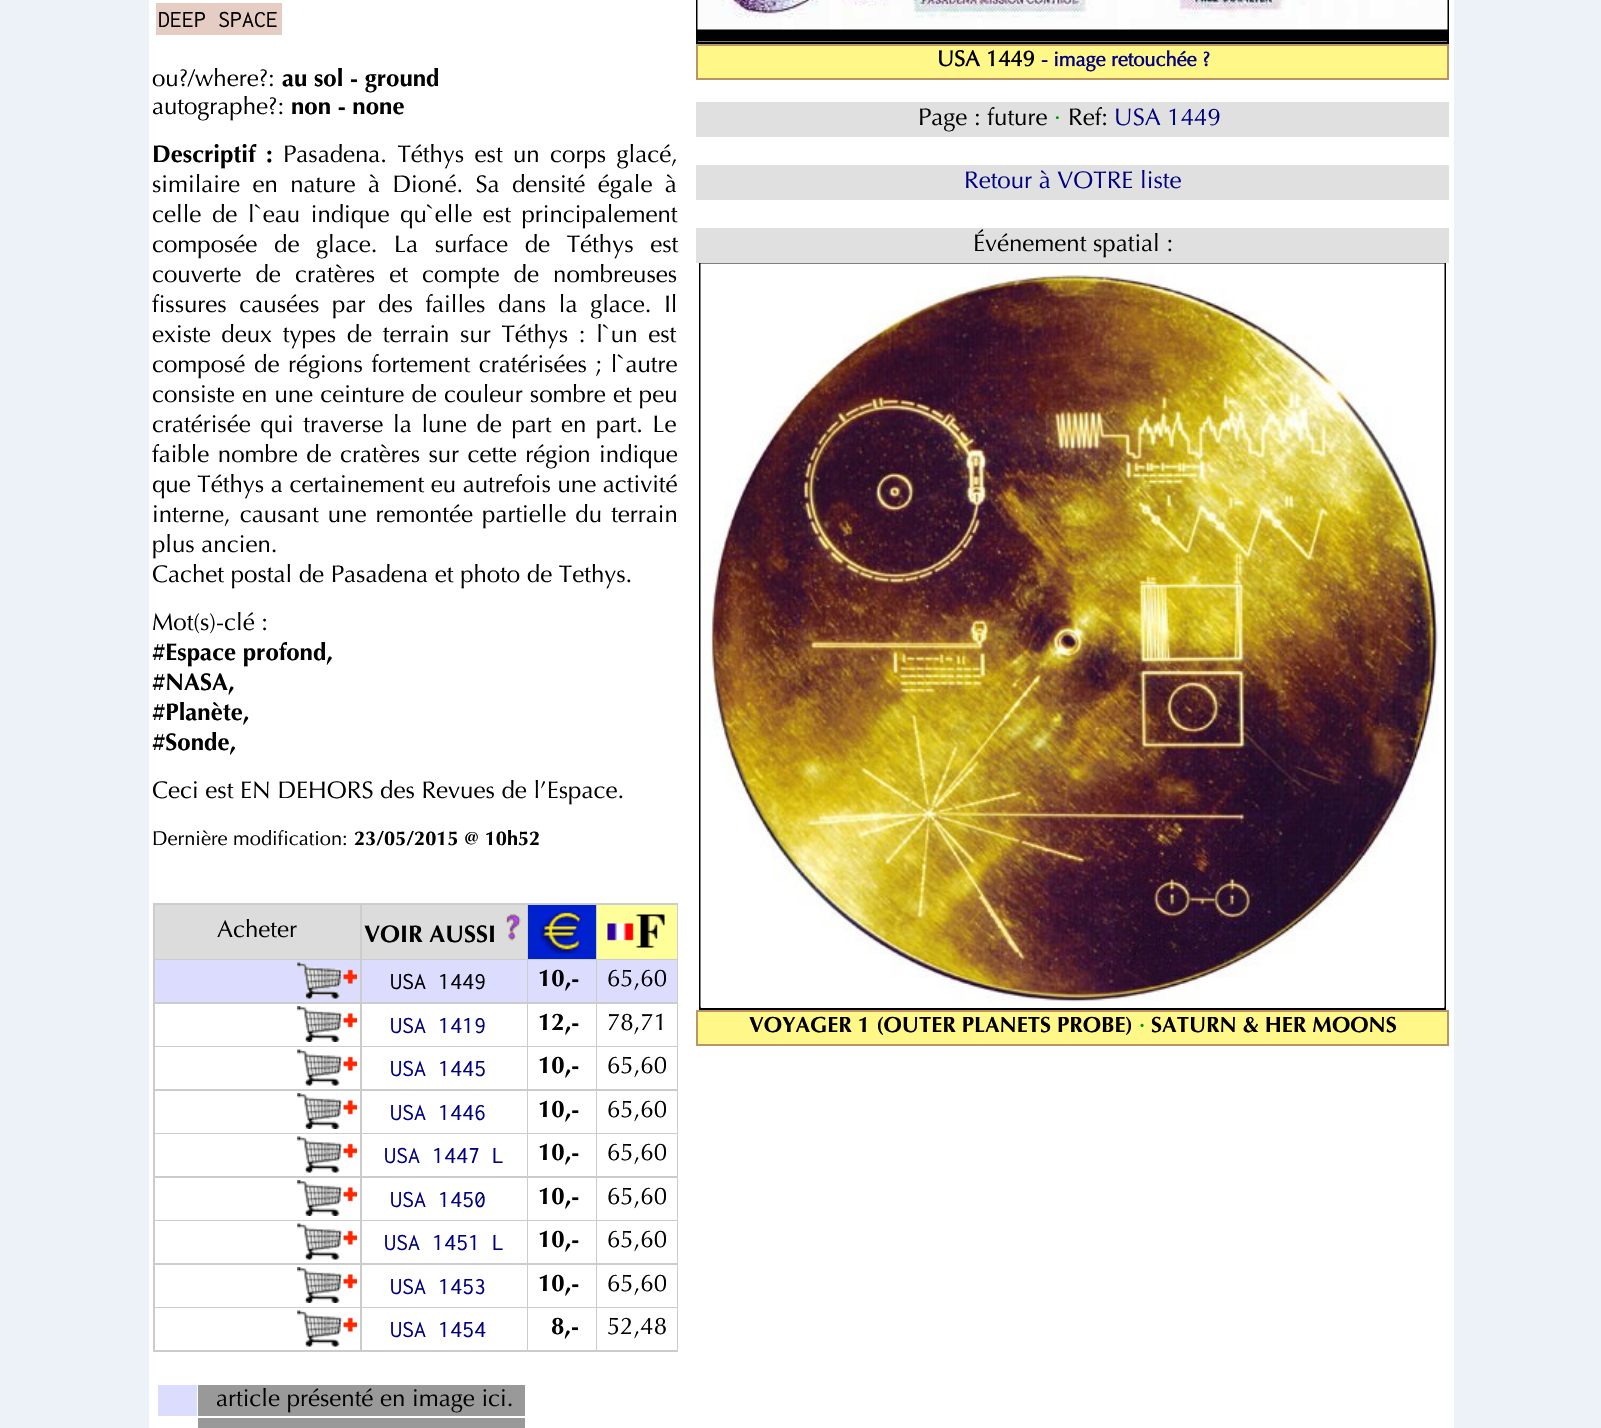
#include "include/core/SkBlurTypes.h"
#include "include/core/SkCanvas.h"
#include "include/core/SkData.h"
#include "include/core/SkFont.h"
#include "include/core/SkFontMgr.h"
#include "include/core/SkImage.h"
#include "include/core/SkMaskFilter.h"
#include "include/core/SkPaint.h"
#include "include/core/SkPathBuilder.h"
#include "include/core/SkTextBlob.h"
#include "include/effects/SkDashPathEffect.h"
#include "include/effects/SkGradientShader.h"
#include "include/utils/SkParsePath.h"

extern sk_sp<SkFontMgr> fontMgr;

static SkFont font(const char* family, int weight, float size, bool italic = false) {
    SkFontStyle style(weight, SkFontStyle::kNormal_Width,
        italic ? SkFontStyle::kItalic_Slant : SkFontStyle::kUpright_Slant);
    SkFont result(fontMgr->matchFamilyStyle(family, style), size);
    result.setSubpixel(true);
    return result;
}

static void drawLabel(SkCanvas* canvas, const char* s, float x, float y, const SkFont& font, SkColor color) {
    SkPaint ink(SkColor4f::FromColor(color));
    ink.setAntiAlias(true);
    canvas->drawString(s, x, y, font, ink);
}

static void drawTracked(SkCanvas* canvas, const char* s, float x, float y, const SkFont& font, const SkPaint& ink, float letter, float word) {
    std::vector<SkGlyphID> glyphs(font.countText(s, strlen(s), SkTextEncoding::kUTF8));
    std::vector<float> xs(glyphs.size());
    font.textToGlyphs(s, strlen(s), SkTextEncoding::kUTF8, glyphs);
    font.getXPos(glyphs, xs, x);
    float extra = 0;
    for (size_t i = 0; i < glyphs.size(); i++) {
        xs[i] += extra;
        extra += letter + word * (glyphs[i] == font.unicharToGlyph(' '));
    }
    canvas->drawTextBlob(SkTextBlob::MakeFromPosHGlyphs(glyphs, xs, y, font), 0, 0, ink);
}

static void fillRect(SkCanvas* canvas, float x, float y, float w, float h, SkColor color) {
    SkPaint ink(SkColor4f::FromColor(color));
    ink.setAntiAlias(true);
    canvas->drawRect(SkRect::MakeXYWH(x, y, w, h), ink);
}

static void drawPhoto(SkCanvas* canvas, const char* path, float x, float y, float w, float h) {
    auto image = SkImages::DeferredFromEncodedData(SkData::MakeFromFileName(path));
    canvas->drawImageRect(image, SkRect::MakeXYWH(x, y, w, h), SkSamplingOptions());
}

void draw(SkCanvas* canvas) {
    SkPaint paint;
    paint.setAntiAlias(true);
    canvas->clear(0xFFEDF1F8);
    fillRect(canvas, 149, 0, 1305, 1428, 0xFFFFFFFF);
    fillRect(canvas, 156, 3, 126, 32, 0xFFE6CDC3);
    SkFont font1 = font("Inconsolata", 400, 24);
    drawLabel(canvas, "DEEP SPACE", 158, 27, font1, 0xFF000000);
    SkFont font2 = font("Optima", 400, 24);
    drawLabel(canvas, "ou?/where?:", 152, 86, font2, 0xFF000000);
    SkFont font3 = font("Optima", 700, 24);
    drawLabel(canvas, "au sol - ground", 282, 86, font3, 0xFF000000);
    drawLabel(canvas, "autographe?:", 152, 114, font2, 0xFF000000);
    drawLabel(canvas, "non - none", 291, 114, font3, 0xFF000000);
    paint.setColor(0xFF000000);
    drawTracked(canvas, "Descriptif :", 152, 162, font3, paint, 0, 3.75f);
    drawTracked(canvas, "Pasadena. Téthys est un corps glacé,", 283, 162, font2, paint, 0, 3.75f);
    drawTracked(canvas, "similaire en nature à Dioné. Sa densité égale à", 152, 192, font2, paint, 0, 5.75f);
    drawTracked(canvas, "celle de l`eau indique qu`elle est principalement", 152, 222, font2, paint, 0, 4);
    drawTracked(canvas, "composée de glace. La surface de Téthys est", 152, 252, font2, paint, 0, 10);
    drawTracked(canvas, "couverte de cratères et compte de nombreuses", 152, 282, font2, paint, 0, 7.5f);
    drawTracked(canvas, "fissures causées par des failles dans la glace. Il", 152, 312, font2, paint, 0, 6);
    drawTracked(canvas, "existe deux types de terrain sur Téthys : l`un est", 152, 342, font2, paint, 0, 4);
    drawTracked(canvas, "composé de régions fortement cratérisées ; l`autre", 152, 372, font2, paint, 0, 2);
    drawTracked(canvas, "consiste en une ceinture de couleur sombre et peu", 152, 402, font2, paint, 0, 0.5f);
    drawTracked(canvas, "cratérisée qui traverse la lune de part en part. Le", 152, 432, font2, paint, 0, 3);
    drawTracked(canvas, "faible nombre de cratères sur cette région indique", 152, 462, font2, paint, 0, 1.75f);
    drawLabel(canvas, "que Téthys a certainement eu autrefois une activité", 152, 492, font2, 0xFF000000);
    drawTracked(canvas, "interne, causant une remontée partielle du terrain", 152, 522, font2, paint, 0, 2.5f);
    drawLabel(canvas, "plus ancien.", 152, 552, font2, 0xFF000000);
    drawLabel(canvas, "Cachet postal de Pasadena et photo de Tethys.", 152, 582, font2, 0xFF000000);
    drawLabel(canvas, "Mot(s)-clé :", 152, 630, font2, 0xFF000000);
    drawLabel(canvas, "#Espace profond,", 152, 660, font3, 0xFF000000);
    drawLabel(canvas, "#NASA,", 152, 690, font3, 0xFF000000);
    drawLabel(canvas, "#Planète,", 152, 720, font3, 0xFF000000);
    drawLabel(canvas, "#Sonde,", 152, 750, font3, 0xFF000000);
    drawLabel(canvas, "Ceci est EN DEHORS des Revues de l’Espace.", 152, 798, font2, 0xFF000000);
    SkFont font4 = font("Optima", 400, 20);
    drawLabel(canvas, "Dernière modification:", 152, 845, font4, 0xFF000000);
    SkFont font5 = font("Optima", 700, 20);
    drawLabel(canvas, "23/05/2015 @ 10h52", 354, 845, font5, 0xFF000000);
    fillRect(canvas, 153, 903, 525, 449, 0xFFCCCCCC);
    fillRect(canvas, 155, 905, 205, 54, 0xFFDCDCDC);
    drawLabel(canvas, "Acheter", 217, 937, font2, 0xFF000000);
    fillRect(canvas, 362, 905, 165, 54, 0xFFDCDCDC);
    drawLabel(canvas, "VOIR AUSSI", 364, 942, font3, 0xFF000000);
    drawPhoto(canvas, "assets/img1.png", 505, 914, 16, 27);
    fillRect(canvas, 528, 905, 68, 54, 0xFF0022CC);
    drawPhoto(canvas, "assets/img2.png", 540, 909, 45, 45);
    fillRect(canvas, 597, 905, 80, 54, 0xFFFFFF99);
    drawPhoto(canvas, "assets/img3.png", 607, 914, 58, 34);
    fillRect(canvas, 155, 960, 205, 42, 0xFFDCDCFF);
    drawPhoto(canvas, "assets/img4.png", 297, 962, 60, 37);
    fillRect(canvas, 362, 960, 165, 42, 0xFFDCDCFF);
    drawLabel(canvas, "USA 1449", 390, 989, font1, 0xFF000000);
    fillRect(canvas, 528, 960, 68, 42, 0xFFDCDCFF);
    drawLabel(canvas, "10,-", 538, 986, font3, 0xFF000000);
    fillRect(canvas, 597, 960, 80, 42, 0xFFDCDCFF);
    drawLabel(canvas, "65,60", 607, 986, font2, 0xFF000000);
    fillRect(canvas, 155, 1004, 205, 42, 0xFFFFFFFF);
    drawPhoto(canvas, "assets/img5.png", 297, 1006, 60, 36);
    fillRect(canvas, 362, 1004, 165, 42, 0xFFFFFFFF);
    drawLabel(canvas, "USA 1419", 390, 1033, font1, 0xFF000080);
    fillRect(canvas, 528, 1004, 68, 42, 0xFFFFFFFF);
    drawLabel(canvas, "12,-", 538, 1030, font3, 0xFF000000);
    fillRect(canvas, 597, 1004, 80, 42, 0xFFFFFFFF);
    drawLabel(canvas, "78,71", 607, 1030, font2, 0xFF000000);
    fillRect(canvas, 155, 1047, 205, 42, 0xFFFFFFFF);
    drawPhoto(canvas, "assets/img6.png", 297, 1049, 60, 37);
    fillRect(canvas, 362, 1047, 165, 42, 0xFFFFFFFF);
    drawLabel(canvas, "USA 1445", 390, 1076, font1, 0xFF000080);
    fillRect(canvas, 528, 1047, 68, 42, 0xFFFFFFFF);
    drawLabel(canvas, "10,-", 538, 1073, font3, 0xFF000000);
    fillRect(canvas, 597, 1047, 80, 42, 0xFFFFFFFF);
    drawLabel(canvas, "65,60", 607, 1073, font2, 0xFF000000);
    fillRect(canvas, 155, 1091, 205, 42, 0xFFFFFFFF);
    drawPhoto(canvas, "assets/img5.png", 297, 1093, 60, 36);
    fillRect(canvas, 362, 1091, 165, 42, 0xFFFFFFFF);
    drawLabel(canvas, "USA 1446", 390, 1120, font1, 0xFF000080);
    fillRect(canvas, 528, 1091, 68, 42, 0xFFFFFFFF);
    drawLabel(canvas, "10,-", 538, 1117, font3, 0xFF000000);
    fillRect(canvas, 597, 1091, 80, 42, 0xFFFFFFFF);
    drawLabel(canvas, "65,60", 607, 1117, font2, 0xFF000000);
    fillRect(canvas, 155, 1134, 205, 42, 0xFFFFFFFF);
    drawPhoto(canvas, "assets/img6.png", 297, 1136, 60, 37);
    fillRect(canvas, 362, 1134, 165, 42, 0xFFFFFFFF);
    drawLabel(canvas, "USA 1447 L", 384, 1163, font1, 0xFF000080);
    fillRect(canvas, 528, 1134, 68, 42, 0xFFFFFFFF);
    drawLabel(canvas, "10,-", 538, 1160, font3, 0xFF000000);
    fillRect(canvas, 597, 1134, 80, 42, 0xFFFFFFFF);
    drawLabel(canvas, "65,60", 607, 1160, font2, 0xFF000000);
    fillRect(canvas, 155, 1178, 205, 42, 0xFFFFFFFF);
    drawPhoto(canvas, "assets/img5.png", 297, 1180, 60, 36);
    fillRect(canvas, 362, 1178, 165, 42, 0xFFFFFFFF);
    drawLabel(canvas, "USA 1450", 390, 1207, font1, 0xFF000080);
    fillRect(canvas, 528, 1178, 68, 42, 0xFFFFFFFF);
    drawLabel(canvas, "10,-", 538, 1204, font3, 0xFF000000);
    fillRect(canvas, 597, 1178, 80, 42, 0xFFFFFFFF);
    drawLabel(canvas, "65,60", 607, 1204, font2, 0xFF000000);
    fillRect(canvas, 155, 1221, 205, 42, 0xFFFFFFFF);
    drawPhoto(canvas, "assets/img6.png", 297, 1223, 60, 37);
    fillRect(canvas, 362, 1221, 165, 42, 0xFFFFFFFF);
    drawLabel(canvas, "USA 1451 L", 384, 1250, font1, 0xFF000080);
    fillRect(canvas, 528, 1221, 68, 42, 0xFFFFFFFF);
    drawLabel(canvas, "10,-", 538, 1247, font3, 0xFF000000);
    fillRect(canvas, 597, 1221, 80, 42, 0xFFFFFFFF);
    drawLabel(canvas, "65,60", 607, 1247, font2, 0xFF000000);
    fillRect(canvas, 155, 1265, 205, 42, 0xFFFFFFFF);
    drawPhoto(canvas, "assets/img5.png", 297, 1267, 60, 36);
    fillRect(canvas, 362, 1265, 165, 42, 0xFFFFFFFF);
    drawLabel(canvas, "USA 1453", 390, 1294, font1, 0xFF000080);
    fillRect(canvas, 528, 1265, 68, 42, 0xFFFFFFFF);
    drawLabel(canvas, "10,-", 538, 1291, font3, 0xFF000000);
    fillRect(canvas, 597, 1265, 80, 42, 0xFFFFFFFF);
    drawLabel(canvas, "65,60", 607, 1291, font2, 0xFF000000);
    fillRect(canvas, 155, 1308, 205, 42, 0xFFFFFFFF);
    drawPhoto(canvas, "assets/img6.png", 297, 1310, 60, 37);
    fillRect(canvas, 362, 1308, 165, 42, 0xFFFFFFFF);
    drawLabel(canvas, "USA 1454", 390, 1337, font1, 0xFF000080);
    fillRect(canvas, 528, 1308, 68, 42, 0xFFFFFFFF);
    drawLabel(canvas, "8,-", 551, 1334, font3, 0xFF000000);
    fillRect(canvas, 597, 1308, 80, 42, 0xFFFFFFFF);
    drawLabel(canvas, "52,48", 607, 1334, font2, 0xFF000000);
    fillRect(canvas, 158, 1385, 39, 31, 0xFFDCDCFF);
    fillRect(canvas, 198, 1385, 327, 31, 0xFF999999);
    drawLabel(canvas, "article présenté en image ici.", 216, 1406, font2, 0xFF000000);
    fillRect(canvas, 198, 1418, 327, 10, 0xFF999999);
    paint.setStroke(true);
    paint.setStrokeWidth(2);
    canvas->drawRect(SkRect::MakeXYWH(697, -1, 751, 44), paint);
    drawPhoto(canvas, "assets/img7.png", 697, 0, 751, 42);
    paint.setStroke(false);
    paint.setColor(0xFFFFF888);
    canvas->drawRect(SkRect::MakeXYWH(697, 45, 751, 34), paint);
    paint.setStroke(true);
    paint.setColor(0xFFBA9463);
    canvas->drawRect(SkRect::MakeXYWH(697, 45, 751, 34), paint);
    SkFont font6 = font("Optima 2", 700, 22);
    drawLabel(canvas, "USA 1449", 937, 66, font6, 0xFF000000);
    SkFont font7 = font("Optima 2", 700, 20);
    drawLabel(canvas, "- image retouchée ?", 1041, 66, font7, 0xFF000080);
    fillRect(canvas, 696, 102, 753, 35, 0xFFE0E0E0);
    drawLabel(canvas, "Page : future", 918, 125, font2, 0xFF000000);
    drawLabel(canvas, "·", 1054, 125, font2, 0xFF009900);
    drawLabel(canvas, "Ref:", 1068, 125, font2, 0xFF000000);
    drawLabel(canvas, "USA 1449", 1114, 125, font2, 0xFF000080);
    fillRect(canvas, 696, 165, 753, 35, 0xFFE0E0E0);
    drawLabel(canvas, "Retour à VOTRE liste", 964, 188, font2, 0xFF000080);
    fillRect(canvas, 696, 228, 753, 35, 0xFFE0E0E0);
    drawLabel(canvas, "Événement spatial :", 973, 251, font2, 0xFF000000);
    paint.setColor(0xFF000000);
    canvas->drawRect(SkRect::MakeXYWH(700, 264, 745, 745), paint);
    drawPhoto(canvas, "assets/img8.png", 700, 263, 745, 745);
    paint.setStroke(false);
    paint.setColor(0xFFFFF888);
    canvas->drawRect(SkRect::MakeXYWH(697, 1011, 751, 34), paint);
    paint.setStroke(true);
    paint.setColor(0xFFBA9463);
    canvas->drawRect(SkRect::MakeXYWH(697, 1011, 751, 34), paint);
    SkFont font8 = font("Optima", 700, 22);
    drawLabel(canvas, "VOYAGER 1 (OUTER PLANETS PROBE)", 749, 1032, font8, 0xFF000000);
    drawLabel(canvas, "·", 1139, 1032, font8, 0xFF009900);
    drawLabel(canvas, "SATURN & HER MOONS", 1151, 1032, font8, 0xFF000000);
}
